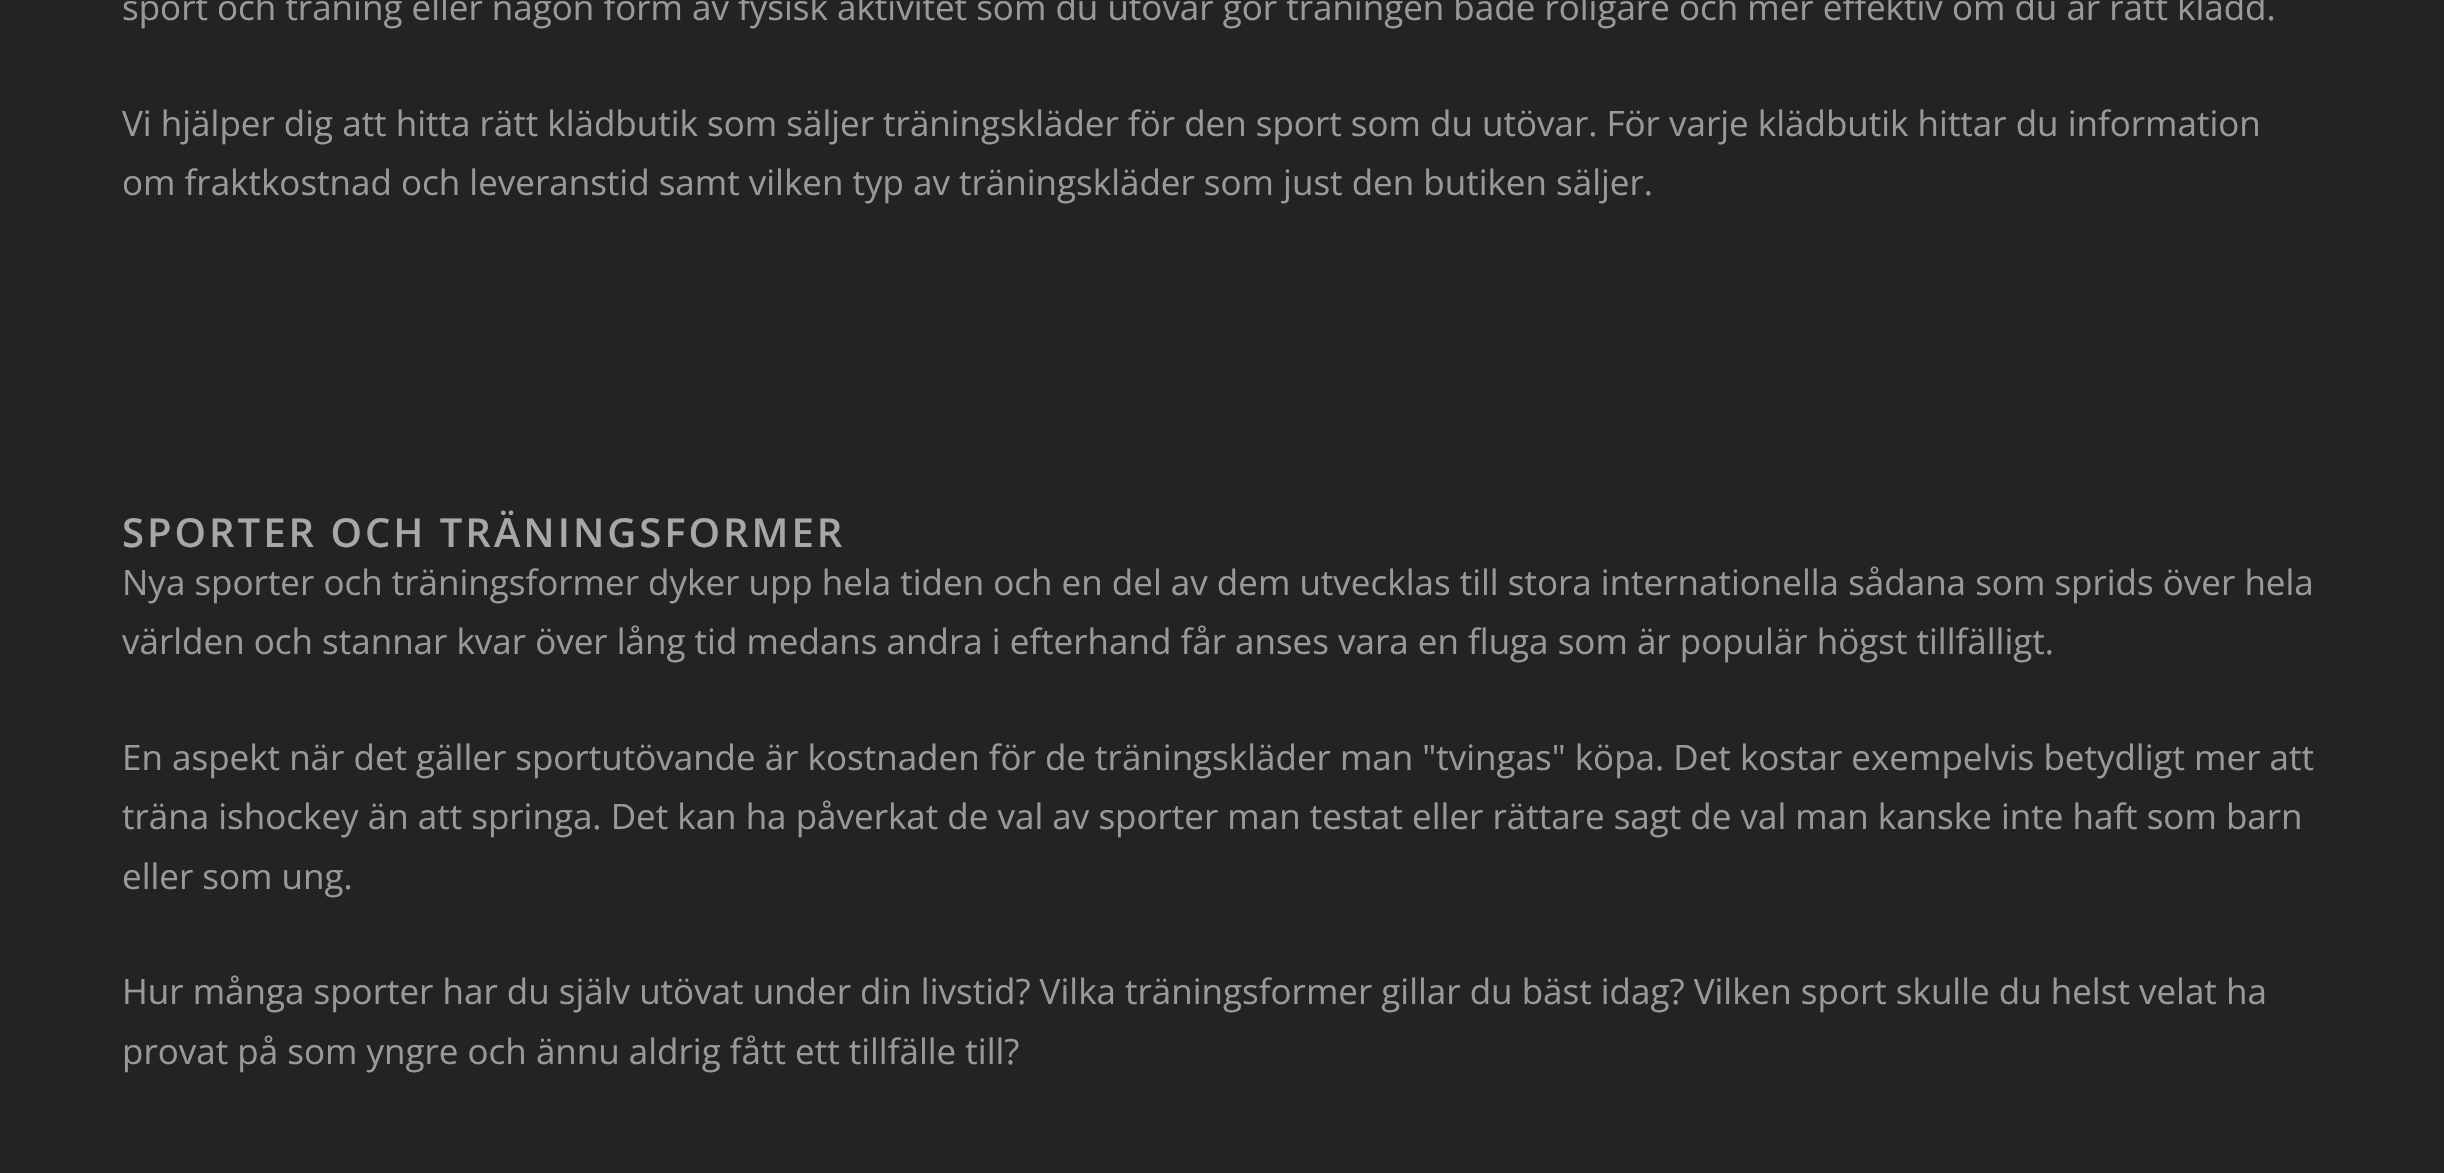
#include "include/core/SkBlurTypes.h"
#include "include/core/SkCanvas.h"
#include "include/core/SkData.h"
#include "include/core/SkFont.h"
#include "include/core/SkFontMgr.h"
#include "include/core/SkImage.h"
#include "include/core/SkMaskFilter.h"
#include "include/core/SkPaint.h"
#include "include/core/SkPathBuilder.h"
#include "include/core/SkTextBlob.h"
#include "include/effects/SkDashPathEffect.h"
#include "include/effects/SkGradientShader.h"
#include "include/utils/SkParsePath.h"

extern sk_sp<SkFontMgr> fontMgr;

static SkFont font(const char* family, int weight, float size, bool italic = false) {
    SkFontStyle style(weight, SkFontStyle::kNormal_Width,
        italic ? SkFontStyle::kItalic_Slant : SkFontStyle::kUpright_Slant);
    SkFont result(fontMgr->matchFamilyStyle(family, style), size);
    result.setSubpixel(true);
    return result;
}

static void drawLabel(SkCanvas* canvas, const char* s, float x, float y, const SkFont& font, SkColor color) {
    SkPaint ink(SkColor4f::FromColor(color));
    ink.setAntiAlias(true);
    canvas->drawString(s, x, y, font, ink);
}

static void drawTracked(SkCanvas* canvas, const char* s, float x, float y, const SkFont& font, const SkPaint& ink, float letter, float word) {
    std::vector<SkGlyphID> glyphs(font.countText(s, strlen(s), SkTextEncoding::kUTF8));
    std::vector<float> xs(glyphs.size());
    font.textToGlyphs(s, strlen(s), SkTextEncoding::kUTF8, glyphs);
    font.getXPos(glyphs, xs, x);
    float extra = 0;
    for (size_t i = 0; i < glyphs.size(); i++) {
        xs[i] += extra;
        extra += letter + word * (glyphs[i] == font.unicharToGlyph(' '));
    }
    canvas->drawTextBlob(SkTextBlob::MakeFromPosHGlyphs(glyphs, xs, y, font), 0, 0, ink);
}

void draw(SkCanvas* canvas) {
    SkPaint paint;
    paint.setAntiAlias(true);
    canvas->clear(0xFF232323);
    SkFont font1 = font("Open Sans", 400, 35);
    drawLabel(canvas, "sport och träning eller någon form av fysisk aktivitet som du utövar gör träningen både roligare och mer effektiv om du är rätt klädd.", 122, 20, font1, 0xFF999999);
    drawLabel(canvas, "Vi hjälper dig att hitta rätt klädbutik som säljer träningskläder för den sport som du utövar. För varje klädbutik hittar du information", 122, 136, font1, 0xFF999999);
    drawLabel(canvas, "om fraktkostnad och leveranstid samt vilken typ av träningskläder som just den butiken säljer.", 122, 195, font1, 0xFF999999);
    SkFont font2 = font("Open Sans", 600, 40);
    paint.setColor(0xFFA7A7A7);
    drawTracked(canvas, "SPORTER OCH TRÄNINGSFORMER", 122, 547, font2, paint, 3, 0);
    drawLabel(canvas, "Nya sporter och träningsformer dyker upp hela tiden och en del av dem utvecklas till stora internationella sådana som sprids över hela", 122, 595, font1, 0xFF999999);
    drawLabel(canvas, "världen och stannar kvar över lång tid medans andra i efterhand får anses vara en fluga som är populär högst tillfälligt.", 122, 654, font1, 0xFF999999);
    drawLabel(canvas, "En aspekt när det gäller sportutövande är kostnaden för de träningskläder man \"tvingas\" köpa. Det kostar exempelvis betydligt mer att", 122, 770, font1, 0xFF999999);
    drawLabel(canvas, "träna ishockey än att springa. Det kan ha påverkat de val av sporter man testat eller rättare sagt de val man kanske inte haft som barn", 122, 829, font1, 0xFF999999);
    drawLabel(canvas, "eller som ung.", 122, 889, font1, 0xFF999999);
    drawLabel(canvas, "Hur många sporter har du själv utövat under din livstid? Vilka träningsformer gillar du bäst idag? Vilken sport skulle du helst velat ha", 122, 1004, font1, 0xFF999999);
    drawLabel(canvas, "provat på som yngre och ännu aldrig fått ett tillfälle till?", 122, 1064, font1, 0xFF999999);
}
